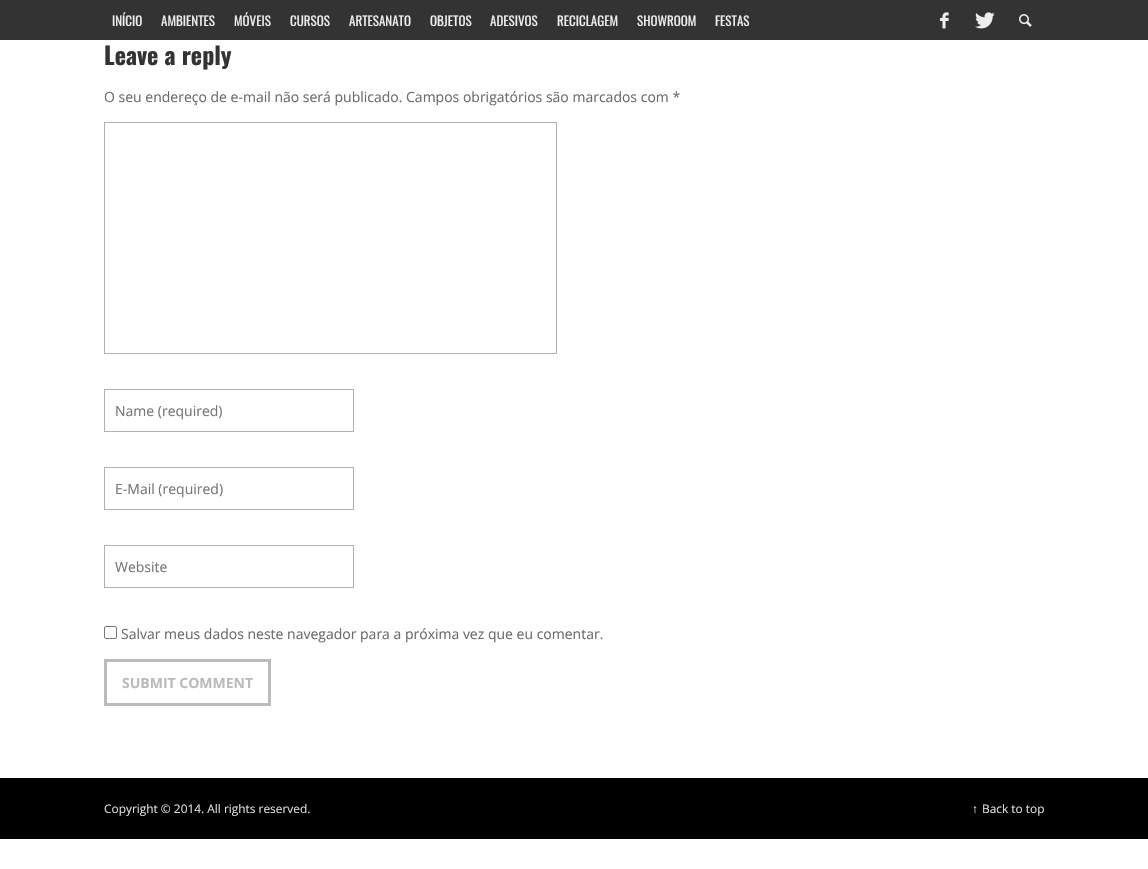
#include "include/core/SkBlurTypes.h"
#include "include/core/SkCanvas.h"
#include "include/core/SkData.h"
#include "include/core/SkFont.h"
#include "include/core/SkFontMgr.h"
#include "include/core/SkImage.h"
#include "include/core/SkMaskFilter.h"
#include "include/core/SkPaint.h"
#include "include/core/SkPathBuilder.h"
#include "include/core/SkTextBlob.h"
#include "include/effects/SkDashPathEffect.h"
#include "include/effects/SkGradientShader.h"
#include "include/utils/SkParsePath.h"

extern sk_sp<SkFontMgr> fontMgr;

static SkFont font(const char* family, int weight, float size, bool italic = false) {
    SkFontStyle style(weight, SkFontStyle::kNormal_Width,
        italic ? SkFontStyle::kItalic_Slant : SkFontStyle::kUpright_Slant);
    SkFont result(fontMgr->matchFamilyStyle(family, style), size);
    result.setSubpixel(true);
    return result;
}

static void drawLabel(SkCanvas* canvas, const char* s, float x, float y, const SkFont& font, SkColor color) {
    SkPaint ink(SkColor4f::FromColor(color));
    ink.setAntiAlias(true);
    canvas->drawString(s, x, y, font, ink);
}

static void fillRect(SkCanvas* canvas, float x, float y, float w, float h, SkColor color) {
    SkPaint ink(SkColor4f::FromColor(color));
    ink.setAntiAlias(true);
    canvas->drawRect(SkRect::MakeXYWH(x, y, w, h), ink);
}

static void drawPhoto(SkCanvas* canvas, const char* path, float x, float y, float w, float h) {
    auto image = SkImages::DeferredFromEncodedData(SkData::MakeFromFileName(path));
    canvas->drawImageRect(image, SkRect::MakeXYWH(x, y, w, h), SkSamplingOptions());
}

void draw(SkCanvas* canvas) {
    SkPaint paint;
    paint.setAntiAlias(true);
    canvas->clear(0xFFFFFFFF);
    fillRect(canvas, 0, 0, 1148, 40, 0xFF333333);
    SkFont font1 = font("Oswald", 400, 13);
    drawLabel(canvas, "INÍCIO", 112, 26, font1, 0xFFEEEEEE);
    drawLabel(canvas, "AMBIENTES", 161, 26, font1, 0xFFEEEEEE);
    drawLabel(canvas, "MÓVEIS", 234, 26, font1, 0xFFEEEEEE);
    drawLabel(canvas, "CURSOS", 290, 26, font1, 0xFFEEEEEE);
    drawLabel(canvas, "ARTESANATO", 349, 26, font1, 0xFFEEEEEE);
    drawLabel(canvas, "OBJETOS", 430, 26, font1, 0xFFEEEEEE);
    drawLabel(canvas, "ADESIVOS", 490, 26, font1, 0xFFEEEEEE);
    drawLabel(canvas, "RECICLAGEM", 557, 26, font1, 0xFFEEEEEE);
    drawLabel(canvas, "SHOWROOM", 637, 26, font1, 0xFFEEEEEE);
    drawLabel(canvas, "FESTAS", 715, 26, font1, 0xFFEEEEEE);
    drawPhoto(canvas, "assets/img1.png", 940, 12, 9, 17);
    drawPhoto(canvas, "assets/img2.png", 975, 12, 20, 17);
    drawPhoto(canvas, "assets/img3.png", 1019, 14, 13, 13);
    SkFont font2 = font("Oswald", 700, 24);
    drawLabel(canvas, "Leave a reply", 104, 65, font2, 0xFF333333);
    SkFont font3 = font("Open Sans", 400, 14);
    drawLabel(canvas, "O seu endereço de e-mail não será publicado. Campos obrigatórios são marcados com *", 104, 102, font3, 0xFF6B6B6B);
    paint.setStroke(true);
    paint.setStrokeWidth(1);
    paint.setColor(0xFFB0B0B0);
    canvas->drawRect(SkRect::MakeXYWH(104.5f, 122.5f, 452, 231), paint);
    canvas->drawRect(SkRect::MakeXYWH(104.5f, 389.5f, 249, 42), paint);
    drawLabel(canvas, "Name (required)", 115, 416, font3, 0xFF757575);
    canvas->drawRect(SkRect::MakeXYWH(104.5f, 467.5f, 249, 42), paint);
    drawLabel(canvas, "E-Mail (required)", 115, 494, font3, 0xFF757575);
    canvas->drawRect(SkRect::MakeXYWH(104.5f, 545.5f, 249, 42), paint);
    drawLabel(canvas, "Website", 115, 572, font3, 0xFF757575);
    paint.setColor(0xFF767676);
    canvas->drawRoundRect(SkRect::MakeXYWH(104.5f, 626.5f, 12, 12), 1.5f, 1.5f, paint);
    drawLabel(canvas, "Salvar meus dados neste navegador para a próxima vez que eu comentar.", 121, 639, font3, 0xFF6B6B6B);
    paint.setStrokeWidth(3);
    paint.setColor(0xFFBBBBBB);
    canvas->drawRect(SkRect::MakeXYWH(105.5f, 660.5f, 164, 44), paint);
    SkFont font4 = font("Open Sans", 700, 14);
    drawLabel(canvas, "SUBMIT COMMENT", 122, 688, font4, 0xFFBBBBBB);
    fillRect(canvas, 0, 778, 1148, 61, 0xFF000000);
    SkFont font5 = font("Open Sans", 400, 11.9f);
    drawLabel(canvas, "Copyright © 2014. All rights reserved.", 104, 813, font5, 0xFFDDDDDD);
    SkFont font6 = font("Liberation Sans", 400, 11.9f);
    drawLabel(canvas, "↑", 972, 813, font6, 0xFFDDDDDD);
    drawLabel(canvas, "Back to top", 982, 813, font5, 0xFFDDDDDD);
}
